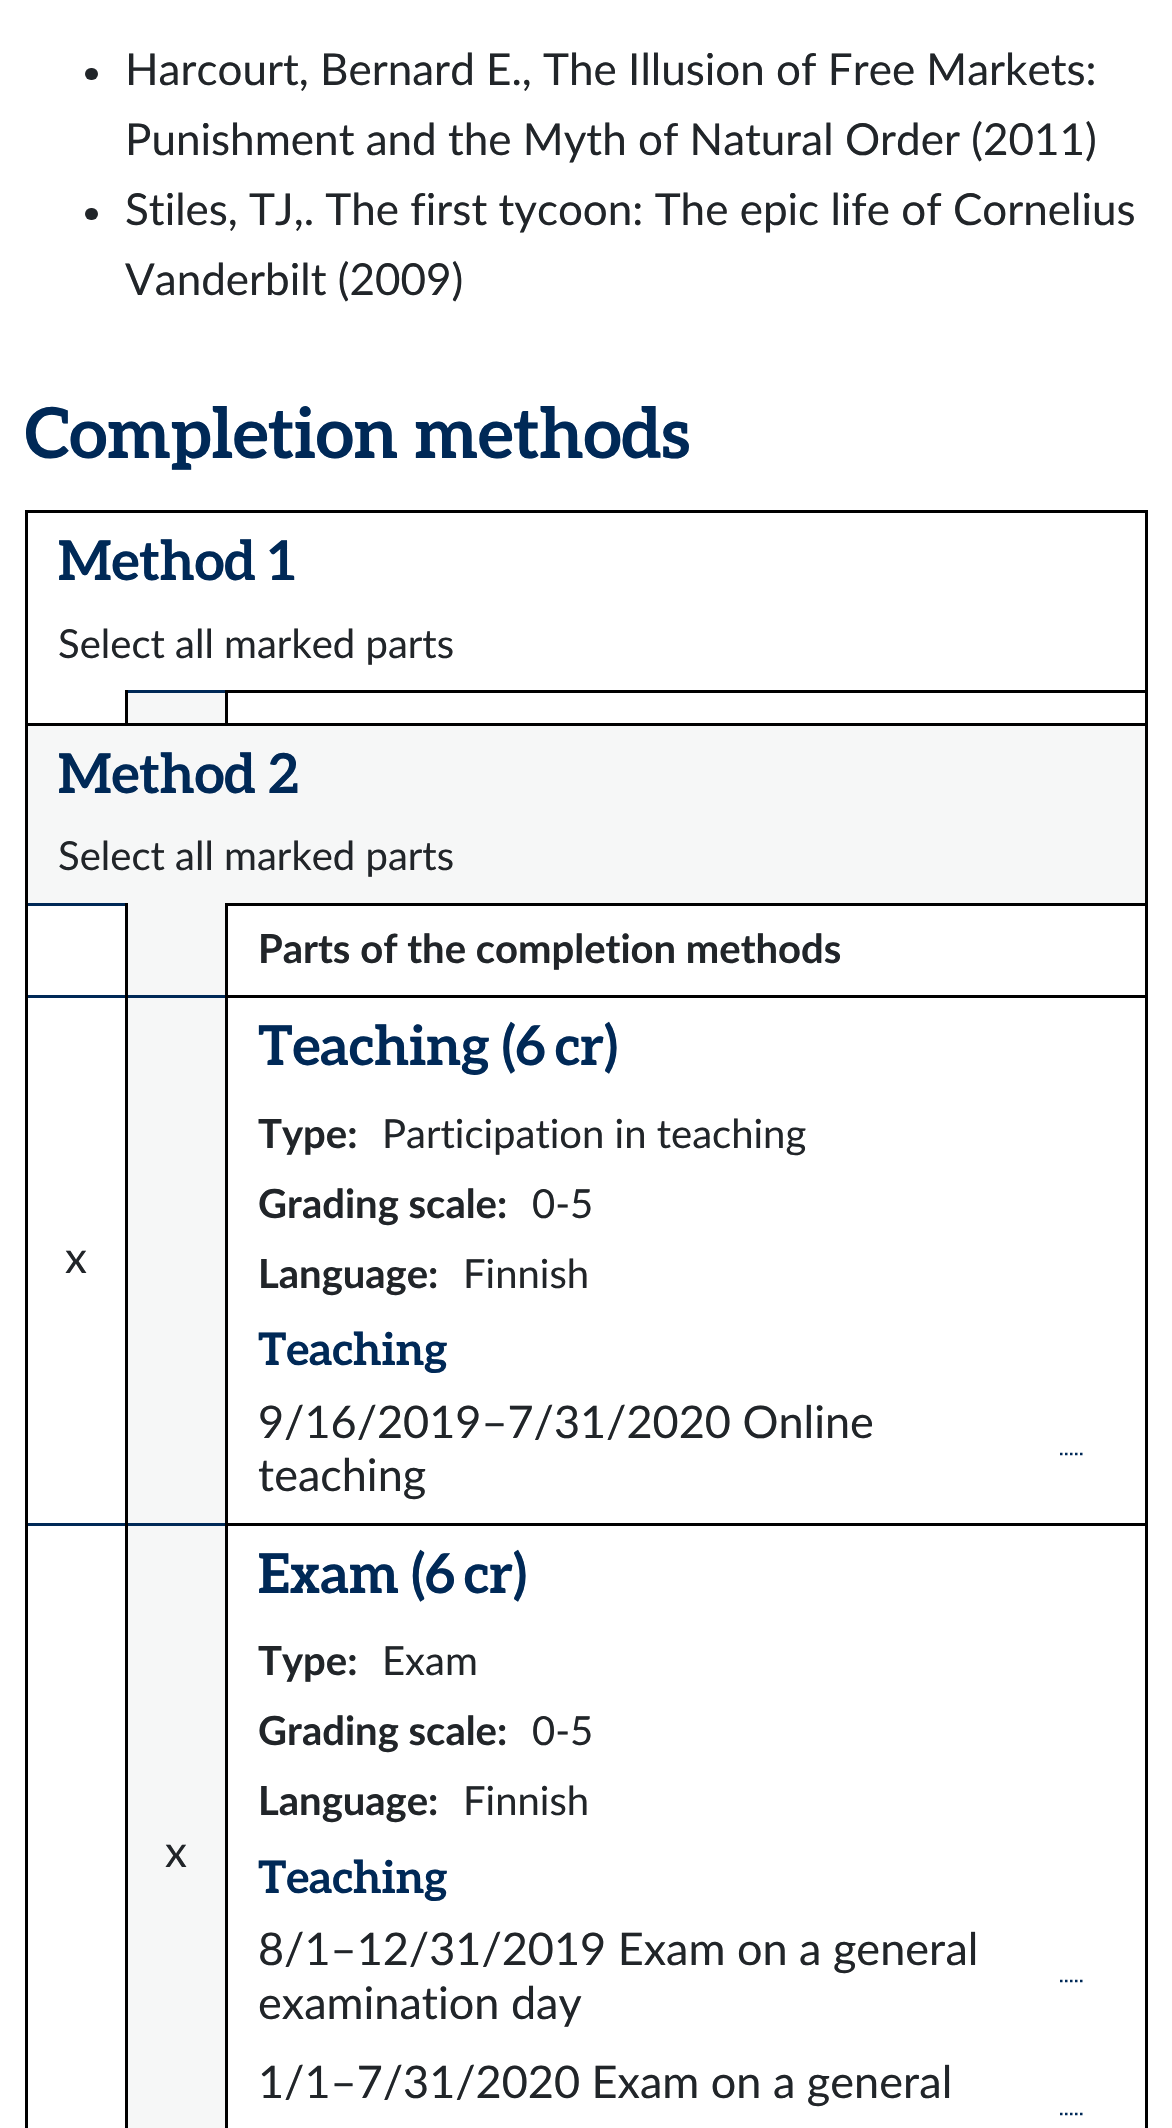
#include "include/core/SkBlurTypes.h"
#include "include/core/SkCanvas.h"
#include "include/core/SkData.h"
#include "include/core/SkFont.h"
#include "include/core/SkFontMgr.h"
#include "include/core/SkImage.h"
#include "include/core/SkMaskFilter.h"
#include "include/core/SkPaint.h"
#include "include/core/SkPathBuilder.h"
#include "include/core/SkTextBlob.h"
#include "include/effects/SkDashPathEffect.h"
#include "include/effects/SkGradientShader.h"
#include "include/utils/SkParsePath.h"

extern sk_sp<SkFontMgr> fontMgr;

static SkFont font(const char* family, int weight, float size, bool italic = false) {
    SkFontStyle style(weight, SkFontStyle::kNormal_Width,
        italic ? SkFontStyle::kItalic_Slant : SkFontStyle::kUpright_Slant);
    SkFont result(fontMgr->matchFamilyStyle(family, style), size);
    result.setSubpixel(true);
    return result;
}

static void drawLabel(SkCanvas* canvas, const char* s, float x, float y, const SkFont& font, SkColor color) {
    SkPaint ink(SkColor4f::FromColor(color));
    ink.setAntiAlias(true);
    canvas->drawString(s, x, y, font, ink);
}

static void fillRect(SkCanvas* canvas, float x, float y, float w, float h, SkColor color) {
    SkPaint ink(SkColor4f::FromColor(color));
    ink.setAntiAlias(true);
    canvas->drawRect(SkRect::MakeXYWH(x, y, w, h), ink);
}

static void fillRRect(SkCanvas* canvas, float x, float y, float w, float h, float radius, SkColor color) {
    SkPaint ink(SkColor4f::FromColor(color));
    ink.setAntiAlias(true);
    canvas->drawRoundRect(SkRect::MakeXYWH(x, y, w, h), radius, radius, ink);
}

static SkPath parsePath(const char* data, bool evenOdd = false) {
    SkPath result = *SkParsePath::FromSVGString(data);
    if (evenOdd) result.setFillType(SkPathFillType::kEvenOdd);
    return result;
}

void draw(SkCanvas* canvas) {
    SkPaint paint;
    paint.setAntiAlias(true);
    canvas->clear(0xFFFFFFFF);
    fillRRect(canvas, 85, 68, 13, 12, 6, 0xFF212529);
    SkFont font1 = font("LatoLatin", 400, 44);
    drawLabel(canvas, "Harcourt, Bernard E., The Illusion of Free Markets:", 125, 85, font1, 0xFF212529);
    drawLabel(canvas, "Punishment and the Myth of Natural Order (2011)", 125, 155, font1, 0xFF212529);
    fillRRect(canvas, 85, 208, 13, 12, 6, 0xFF212529);
    drawLabel(canvas, "Stiles, TJ,. The first tycoon: The epic life of Cornelius", 125, 225, font1, 0xFF212529);
    drawLabel(canvas, "Vanderbilt (2009)", 125, 295, font1, 0xFF212529);
    SkFont font2 = font("Aleo", 700, 70);
    drawLabel(canvas, "Completion methods", 25, 458, font2, 0xFF002957);
    fillRect(canvas, 25, 510, 1123, 3, 0xFF000000);
    fillRect(canvas, 1145, 510, 3, 180, 0xFF000000);
    fillRect(canvas, 25, 510, 3, 213, 0xFF000000);
    SkFont font3 = font("Aleo", 700, 55);
    drawLabel(canvas, "Method 1", 58, 580, font3, 0xFF002957);
    SkFont font4 = font("LatoLatin", 400, 40);
    drawLabel(canvas, "Select all marked parts", 58, 658, font4, 0xFF212529);
    fillRect(canvas, 128, 693, 97, 30, 0xFFF6F7F7);
    fillRect(canvas, 125, 690, 100, 3, 0xFF002957);
    fillRect(canvas, 125, 690, 3, 33, 0xFF000000);
    fillRect(canvas, 225, 690, 923, 3, 0xFF000000);
    fillRect(canvas, 1145, 690, 3, 33, 0xFF000000);
    fillRect(canvas, 225, 690, 3, 33, 0xFF000000);
    fillRect(canvas, 28, 726, 1117, 177, 0xFFF6F7F7);
    fillRect(canvas, 25, 723, 1123, 3, 0xFF000000);
    fillRect(canvas, 1145, 723, 3, 180, 0xFF000000);
    fillRect(canvas, 25, 723, 3, 180, 0xFF000000);
    drawLabel(canvas, "Method 2", 58, 793, font3, 0xFF002957);
    drawLabel(canvas, "Select all marked parts", 58, 870, font4, 0xFF212529);
    fillRect(canvas, 25, 903, 100, 3, 0xFF002957);
    fillRect(canvas, 25, 903, 3, 92, 0xFF000000);
    fillRect(canvas, 128, 903, 97, 92, 0xFFF6F7F7);
    fillRect(canvas, 125, 903, 3, 92, 0xFF000000);
    fillRect(canvas, 225, 903, 923, 3, 0xFF000000);
    fillRect(canvas, 1145, 903, 3, 92, 0xFF000000);
    fillRect(canvas, 225, 903, 3, 92, 0xFF000000);
    SkFont font5 = font("LatoLatin", 700, 40);
    drawLabel(canvas, "Parts of the completion methods", 258, 963, font5, 0xFF212529);
    fillRect(canvas, 25, 995, 200, 3, 0xFF002957);
    fillRect(canvas, 25, 995, 3, 528, 0xFF000000);
    drawLabel(canvas, "x", 65, 1273, font1, 0xFF212529);
    fillRect(canvas, 128, 998, 97, 525, 0xFFF6F7F7);
    fillRect(canvas, 125, 995, 3, 528, 0xFF000000);
    fillRect(canvas, 225, 995, 923, 3, 0xFF000000);
    fillRect(canvas, 1145, 995, 3, 528, 0xFF000000);
    fillRect(canvas, 225, 995, 3, 528, 0xFF000000);
    drawLabel(canvas, "Teaching (6", 258, 1065, font3, 0xFF002957);
    drawLabel(canvas, "cr)", 555, 1065, font3, 0xFF002957);
    drawLabel(canvas, "Type:", 258, 1148, font5, 0xFF212529);
    drawLabel(canvas, "Participation in teaching", 382, 1148, font4, 0xFF212529);
    drawLabel(canvas, "Grading scale:", 258, 1218, font5, 0xFF212529);
    drawLabel(canvas, "0-5", 532, 1218, font4, 0xFF212529);
    drawLabel(canvas, "Language:", 258, 1288, font5, 0xFF212529);
    drawLabel(canvas, "Finnish", 463, 1288, font4, 0xFF212529);
    SkFont font6 = font("Aleo", 700, 45);
    drawLabel(canvas, "Teaching", 258, 1365, font6, 0xFF002957);
    SkFont font7 = font("LatoLatin", 400, 45);
    drawLabel(canvas, "9/16/2019–7/31/2020 Online", 258, 1438, font7, 0xFF212529);
    drawLabel(canvas, "teaching", 258, 1491, font7, 0xFF212529);
    paint.setStroke(true);
    paint.setStrokeWidth(2.5f);
    paint.setColor(0xFF002957);
    paint.setPathEffect(SkDashPathEffect::Make({{2.5f, 2.5f}}, 0));
    canvas->drawPath(parsePath("M1060 1454H1085"), paint);
    paint.setPathEffect(nullptr);
    fillRect(canvas, 25, 1523, 200, 3, 0xFF002957);
    fillRect(canvas, 25, 1523, 3, 605, 0xFF000000);
    fillRect(canvas, 225, 1523, 923, 3, 0xFF000000);
    fillRect(canvas, 1145, 1523, 3, 605, 0xFF000000);
    fillRect(canvas, 225, 1523, 3, 605, 0xFF000000);
    drawLabel(canvas, "Exam (6", 258, 1593, font3, 0xFF002957);
    drawLabel(canvas, "cr)", 464, 1593, font3, 0xFF002957);
    drawLabel(canvas, "Type:", 258, 1675, font5, 0xFF212529);
    drawLabel(canvas, "Exam", 382, 1675, font4, 0xFF212529);
    drawLabel(canvas, "Grading scale:", 258, 1745, font5, 0xFF212529);
    drawLabel(canvas, "0-5", 532, 1745, font4, 0xFF212529);
    drawLabel(canvas, "Language:", 258, 1815, font5, 0xFF212529);
    drawLabel(canvas, "Finnish", 463, 1815, font4, 0xFF212529);
    drawLabel(canvas, "Teaching", 258, 1893, font6, 0xFF002957);
    drawLabel(canvas, "8/1–12/31/2019 Exam on a general", 258, 1965, font7, 0xFF212529);
    drawLabel(canvas, "examination day", 258, 2019, font7, 0xFF212529);
    paint.setPathEffect(SkDashPathEffect::Make({{2.5f, 2.5f}}, 0));
    canvas->drawPath(parsePath("M1060 1981H1085"), paint);
    paint.setPathEffect(nullptr);
    drawLabel(canvas, "1/1–7/31/2020 Exam on a general", 258, 2098, font7, 0xFF212529);
    paint.setPathEffect(SkDashPathEffect::Make({{2.5f, 2.5f}}, 0));
    canvas->drawPath(parsePath("M1060 2114H1085"), paint);
    paint.setPathEffect(nullptr);
    fillRect(canvas, 128, 1526, 97, 602, 0xFFF6F7F7);
    fillRect(canvas, 125, 1523, 3, 605, 0xFF000000);
    drawLabel(canvas, "x", 165, 1867, font1, 0xFF212529);
}
